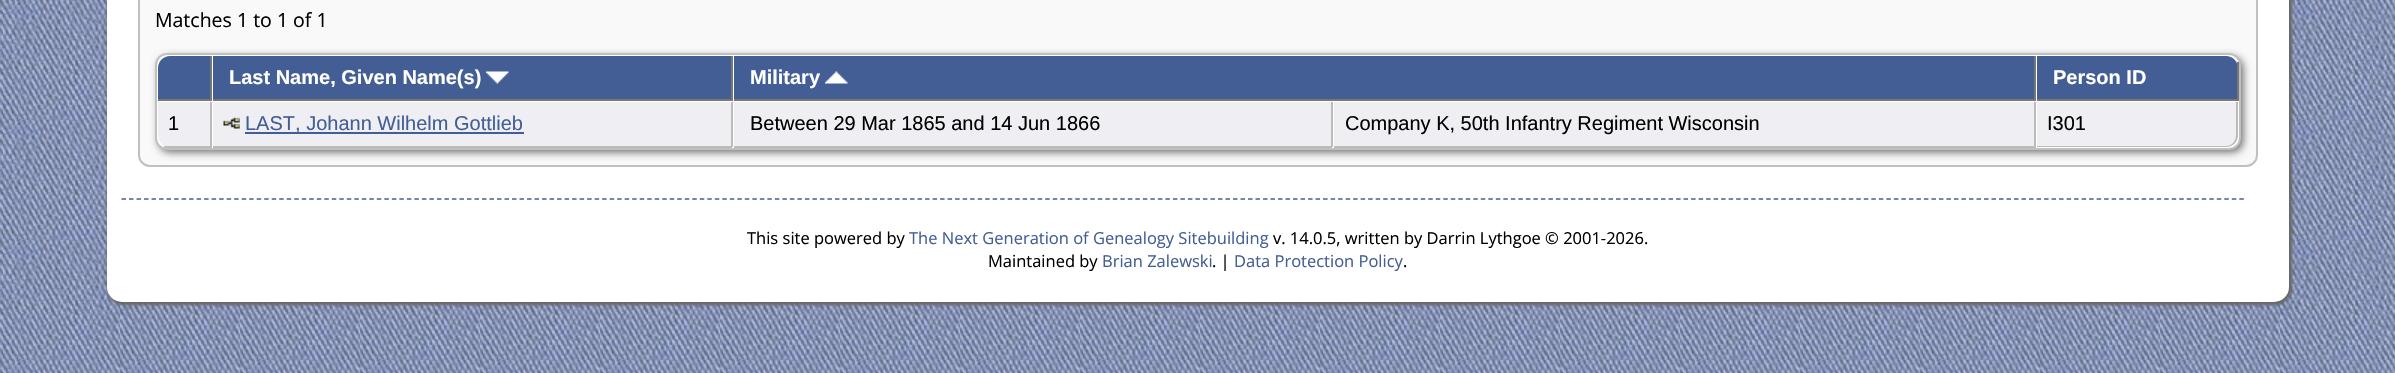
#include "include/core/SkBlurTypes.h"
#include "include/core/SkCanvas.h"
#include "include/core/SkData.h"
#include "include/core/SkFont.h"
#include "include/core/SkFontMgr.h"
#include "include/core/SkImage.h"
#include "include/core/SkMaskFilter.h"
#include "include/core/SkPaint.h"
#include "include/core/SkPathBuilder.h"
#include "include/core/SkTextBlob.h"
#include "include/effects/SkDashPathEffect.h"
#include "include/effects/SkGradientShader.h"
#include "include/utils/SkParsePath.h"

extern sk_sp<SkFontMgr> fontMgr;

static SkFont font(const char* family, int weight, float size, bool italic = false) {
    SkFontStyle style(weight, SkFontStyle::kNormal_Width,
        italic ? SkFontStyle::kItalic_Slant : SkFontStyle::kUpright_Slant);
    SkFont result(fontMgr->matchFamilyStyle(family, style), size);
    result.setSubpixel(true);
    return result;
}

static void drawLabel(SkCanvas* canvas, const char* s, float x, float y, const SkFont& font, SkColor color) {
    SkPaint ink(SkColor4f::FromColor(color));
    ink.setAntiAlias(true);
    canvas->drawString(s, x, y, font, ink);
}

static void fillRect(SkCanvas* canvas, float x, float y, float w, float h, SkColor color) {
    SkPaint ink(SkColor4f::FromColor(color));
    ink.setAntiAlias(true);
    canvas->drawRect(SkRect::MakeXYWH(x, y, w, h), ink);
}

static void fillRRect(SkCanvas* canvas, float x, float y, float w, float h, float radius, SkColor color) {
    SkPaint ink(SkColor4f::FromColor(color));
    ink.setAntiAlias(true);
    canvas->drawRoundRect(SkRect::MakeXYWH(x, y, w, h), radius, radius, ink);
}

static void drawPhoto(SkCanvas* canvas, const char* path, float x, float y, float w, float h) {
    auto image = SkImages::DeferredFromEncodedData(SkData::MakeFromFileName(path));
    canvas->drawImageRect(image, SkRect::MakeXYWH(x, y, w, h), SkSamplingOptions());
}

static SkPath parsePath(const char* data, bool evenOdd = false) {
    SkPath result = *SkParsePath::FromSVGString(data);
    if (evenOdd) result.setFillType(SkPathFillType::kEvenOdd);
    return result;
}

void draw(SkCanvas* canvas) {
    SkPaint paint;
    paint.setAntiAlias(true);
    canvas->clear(0xFFFFFFFF);
    drawPhoto(canvas, "assets/img1.png", 0, 0, 2395, 373);
    paint.setColor(0xFF666666);
    paint.setMaskFilter(SkMaskFilter::MakeBlur(kNormal_SkBlurStyle, 1.5f));
    canvas->drawRoundRect(SkRect::MakeXYWH(107, -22, 2185, 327), 17, 17, paint);
    paint.setMaskFilter(nullptr);
    fillRRect(canvas, 107, -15, 2182, 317, 15, 0xFFFFFFFF);
    paint.setColor(0xFFF9F9F9);
    canvas->drawRoundRect(SkRect::MakeXYWH(139, -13, 2118, 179), 11, 11, paint);
    paint.setStroke(true);
    paint.setStrokeWidth(2);
    paint.setColor(0xFFC0C0C0);
    canvas->drawRoundRect(SkRect::MakeXYWH(139, -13, 2118, 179), 11, 11, paint);
    SkFont font1 = font("Open Sans", 400, 19.5f);
    drawLabel(canvas, "Matches 1 to 1 of 1", 155, 27, font1, 0xFF000000);
    paint.setStroke(false);
    paint.setColor(0xFF666666);
    paint.setMaskFilter(SkMaskFilter::MakeBlur(kNormal_SkBlurStyle, 4));
    canvas->drawRoundRect(SkRect::MakeXYWH(159, 57, 2084, 95), 11, 11, paint);
    paint.setMaskFilter(nullptr);
    paint.setColor(0xFFFFFFFF);
    canvas->drawRoundRect(SkRect::MakeXYWH(156, 54, 2084, 95), 11, 11, paint);
    paint.setStroke(true);
    paint.setColor(0xFFC0C0C0);
    canvas->drawRoundRect(SkRect::MakeXYWH(156, 54, 2084, 95), 11, 11, paint);
    paint.setStroke(false);
    paint.setColor(0xFF435E95);
    canvas->drawPath(parsePath("M170 56H212V101H158V68C158 61.5 163.5 56 170 56Z"), paint);
    fillRect(canvas, 210, 56, 2, 45, 0xFF777777);
    fillRect(canvas, 158, 99, 54, 2, 0xFF777777);
    fillRect(canvas, 213, 56, 518, 43, 0xFF435E95);
    fillRect(canvas, 731, 56, 2, 45, 0xFF777777);
    fillRect(canvas, 213, 99, 519, 2, 0xFF777777);
    SkFont font2 = font("Liberation Sans", 700, 20);
    drawLabel(canvas, "Last Name, Given Name(s)", 229, 84, font2, 0xFFFFFFFF);
    drawPhoto(canvas, "assets/img2.png", 486, 71, 23, 13);
    fillRect(canvas, 734, 56, 1300, 43, 0xFF435E95);
    fillRect(canvas, 2034, 56, 2, 45, 0xFF777777);
    fillRect(canvas, 734, 99, 1302, 2, 0xFF777777);
    drawLabel(canvas, "Military", 750, 84, font2, 0xFFFFFFFF);
    drawPhoto(canvas, "assets/img3.png", 825, 71, 23, 13);
    canvas->drawPath(parsePath("M2037 56H2226C2232.5 56 2238 61.5 2238 68V101H2037Z"), paint);
    fillRect(canvas, 2237, 62, 2, 39, 0xFF777777);
    fillRect(canvas, 2037, 99, 201, 2, 0xFF777777);
    drawLabel(canvas, "Person ID", 2053, 84, font2, 0xFFFFFFFF);
    paint.setColor(0xFFEEEEF3);
    canvas->drawPath(parsePath("M158 102H212V147H170C163.5 147 158 141.5 158 135Z"), paint);
    fillRect(canvas, 210, 102, 2, 45, 0xFFBBBBBB);
    fillRect(canvas, 164, 146, 48, 2, 0xFFBBBBBB);
    SkFont font3 = font("Liberation Sans", 400, 20);
    drawLabel(canvas, "1", 168, 130, font3, 0xFF000000);
    fillRect(canvas, 213, 102, 518, 44, 0xFFEEEEF3);
    fillRect(canvas, 731, 102, 2, 45, 0xFFBBBBBB);
    fillRect(canvas, 213, 146, 519, 2, 0xFFBBBBBB);
    drawPhoto(canvas, "assets/img4.png", 223, 117, 17, 12);
    fillRect(canvas, 245, 132, 279, 2, 0xFF435E95);
    drawLabel(canvas, "LAST, Johann Wilhelm Gottlieb", 245, 130, font3, 0xFF435E95);
    fillRect(canvas, 734, 102, 597, 44, 0xFFEEEEF3);
    fillRect(canvas, 1331, 102, 2, 45, 0xFFBBBBBB);
    fillRect(canvas, 734, 146, 598, 2, 0xFFBBBBBB);
    drawLabel(canvas, "Between 29 Mar 1865 and 14 Jun 1866", 750, 130, font3, 0xFF000000);
    fillRect(canvas, 1334, 102, 700, 44, 0xFFEEEEF3);
    fillRect(canvas, 2034, 102, 2, 45, 0xFFBBBBBB);
    fillRect(canvas, 1334, 146, 702, 2, 0xFFBBBBBB);
    drawLabel(canvas, "Company K, 50th Infantry Regiment Wisconsin", 1345, 130, font3, 0xFF000000);
    canvas->drawPath(parsePath("M2037 102H2238V135C2238 141.5 2232.5 147 2226 147H2037Z"), paint);
    paint.setColor(0xFFBBBBBB);
    canvas->drawPath(parsePath("M2037 102H2238V135C2238 142 2233 147 2226 147H2037ZM2037 102H2236V135C2236 141 2232 146 2226 146H2037Z", true), paint);
    drawLabel(canvas, "I301", 2047, 130, font3, 0xFF000000);
    paint.setStroke(true);
    paint.setStrokeWidth(1.5f);
    paint.setColor(0xFF435E95);
    paint.setPathEffect(SkDashPathEffect::Make({{4.5f, 3.01f}}, 0));
    canvas->drawPath(parsePath("M121.5 199H2244"), paint);
    paint.setPathEffect(nullptr);
    SkFont font4 = font("Open Sans", 400, 16.5f);
    drawLabel(canvas, "This site powered by", 747, 244, font4, 0xFF000000);
    drawLabel(canvas, "The Next Generation of Genealogy Sitebuilding", 909, 244, font4, 0xFF435E95);
    drawLabel(canvas, "v. 14.0.5, written by Darrin Lythgoe © 2001-2026.", 1273, 244, font4, 0xFF000000);
    drawLabel(canvas, "Maintained by", 988, 267, font4, 0xFF000000);
    drawLabel(canvas, "Brian Zalewski", 1102, 267, font4, 0xFF435E95);
    drawLabel(canvas, ". |", 1212, 267, font4, 0xFF000000);
    drawLabel(canvas, "Data Protection Policy", 1234, 267, font4, 0xFF435E95);
    drawLabel(canvas, ".", 1403, 267, font4, 0xFF000000);
}
